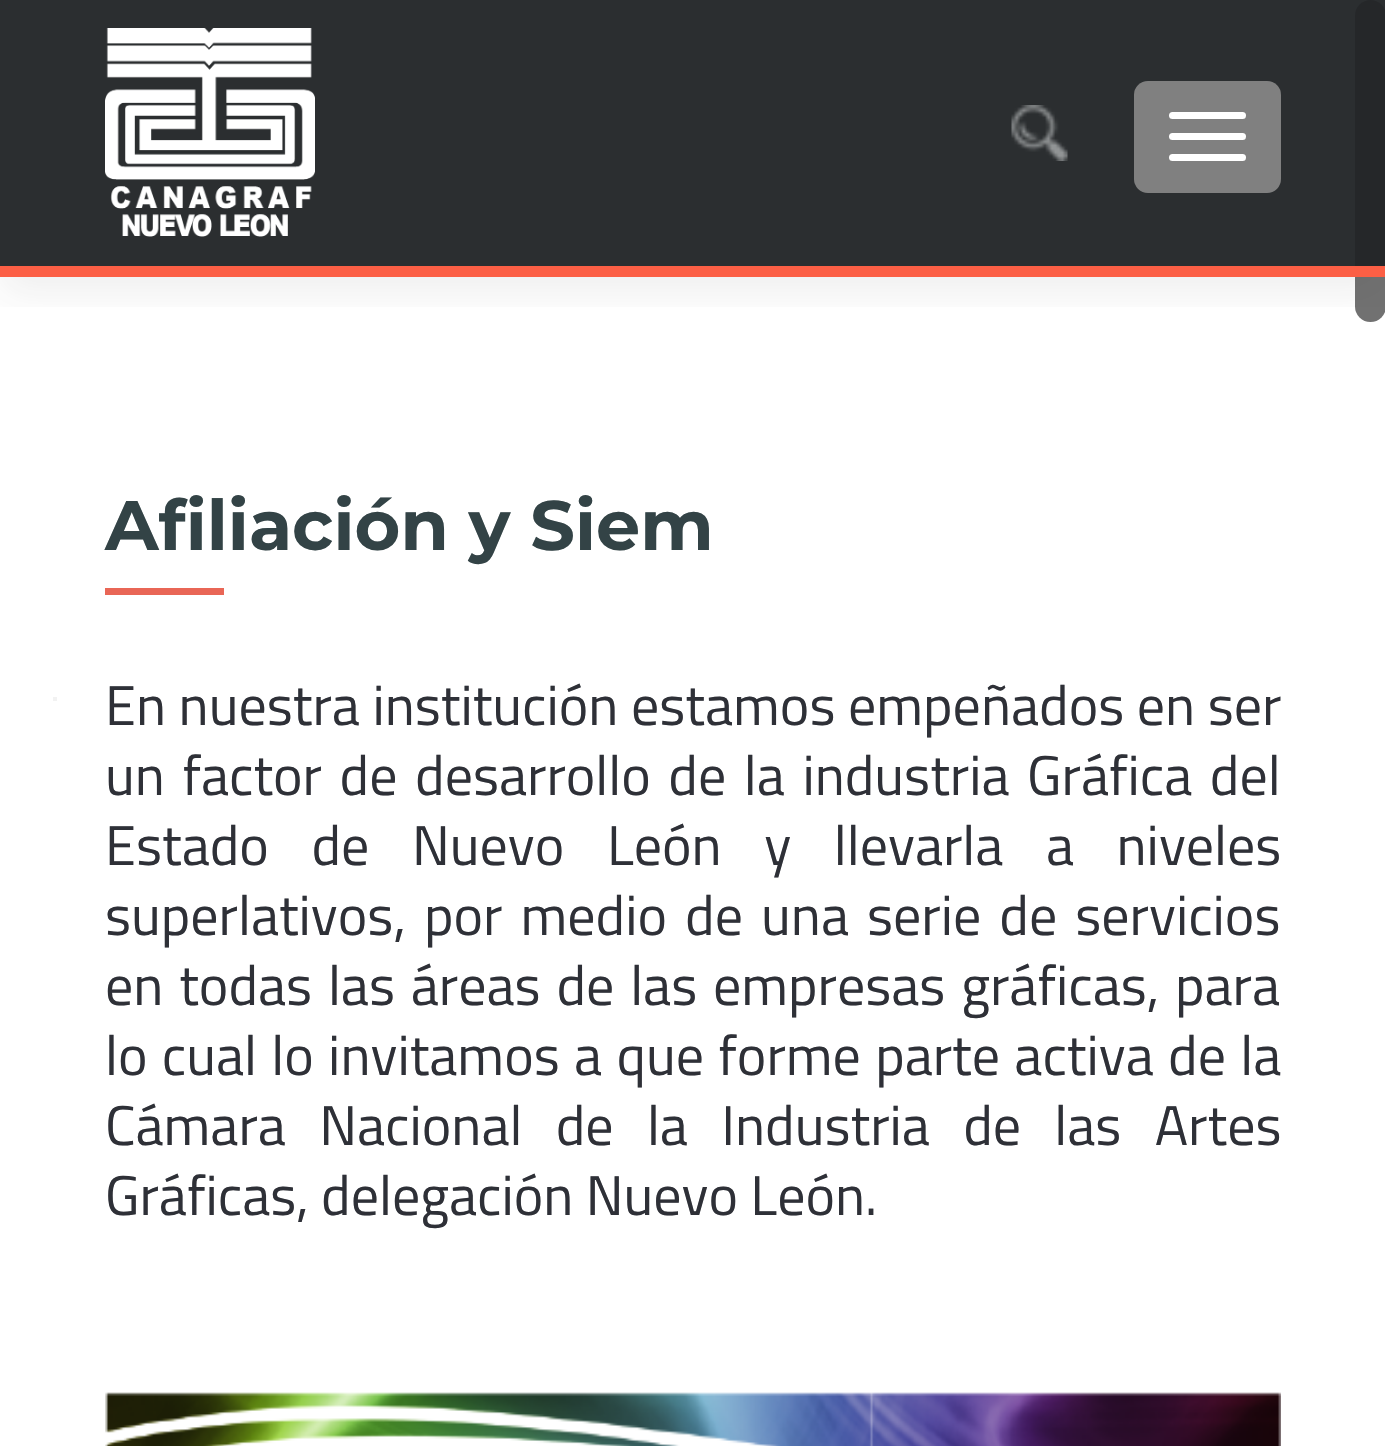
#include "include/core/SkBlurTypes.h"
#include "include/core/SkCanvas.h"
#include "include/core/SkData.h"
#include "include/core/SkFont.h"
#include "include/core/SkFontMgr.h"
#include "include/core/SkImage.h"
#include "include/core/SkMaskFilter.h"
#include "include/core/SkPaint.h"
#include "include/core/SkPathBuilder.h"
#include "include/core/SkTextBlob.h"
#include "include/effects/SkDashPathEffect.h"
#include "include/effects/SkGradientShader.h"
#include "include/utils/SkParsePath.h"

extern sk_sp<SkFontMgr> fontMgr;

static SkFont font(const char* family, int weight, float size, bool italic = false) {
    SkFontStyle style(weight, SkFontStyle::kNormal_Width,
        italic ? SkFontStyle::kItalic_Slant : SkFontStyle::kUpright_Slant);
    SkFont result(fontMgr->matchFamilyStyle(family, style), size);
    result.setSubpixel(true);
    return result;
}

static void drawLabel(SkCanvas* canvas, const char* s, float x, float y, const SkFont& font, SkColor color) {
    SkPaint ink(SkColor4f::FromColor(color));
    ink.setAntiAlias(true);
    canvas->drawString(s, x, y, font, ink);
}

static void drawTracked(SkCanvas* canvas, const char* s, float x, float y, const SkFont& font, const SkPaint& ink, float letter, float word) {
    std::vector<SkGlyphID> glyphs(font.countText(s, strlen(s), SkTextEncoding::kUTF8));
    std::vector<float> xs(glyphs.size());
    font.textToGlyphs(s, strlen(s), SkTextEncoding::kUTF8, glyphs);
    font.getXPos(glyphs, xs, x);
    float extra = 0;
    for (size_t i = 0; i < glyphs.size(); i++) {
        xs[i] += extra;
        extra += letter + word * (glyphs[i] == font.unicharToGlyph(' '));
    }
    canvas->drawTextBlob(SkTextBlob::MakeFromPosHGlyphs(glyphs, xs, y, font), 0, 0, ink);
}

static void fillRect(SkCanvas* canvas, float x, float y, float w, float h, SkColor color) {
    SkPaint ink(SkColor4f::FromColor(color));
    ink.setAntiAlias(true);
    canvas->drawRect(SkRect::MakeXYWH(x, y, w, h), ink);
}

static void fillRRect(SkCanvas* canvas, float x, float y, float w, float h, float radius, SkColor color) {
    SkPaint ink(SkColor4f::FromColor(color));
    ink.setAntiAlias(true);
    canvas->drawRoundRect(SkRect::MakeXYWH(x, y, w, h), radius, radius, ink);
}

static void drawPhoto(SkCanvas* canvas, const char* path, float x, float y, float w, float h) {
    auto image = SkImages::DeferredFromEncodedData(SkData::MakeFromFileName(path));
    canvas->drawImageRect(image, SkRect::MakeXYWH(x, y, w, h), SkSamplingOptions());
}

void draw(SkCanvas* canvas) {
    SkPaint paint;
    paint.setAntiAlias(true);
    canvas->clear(0xFF98A0A2);
    fillRect(canvas, 0, 277, 1385, 1169, 0xFFFFFFFF);
    fillRRect(canvas, 1355, 0, 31, 322, 15.5f, 0xBF424242);
    canvas->save();
    canvas->clipRect(SkRect::MakeXYWH(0, 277, 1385, 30));
    paint.setColor(0x14323232);
    paint.setMaskFilter(SkMaskFilter::MakeBlur(kNormal_SkBlurStyle, 19));
    canvas->drawRect(SkRect::MakeXYWH(0, 18, 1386, 276), paint);
    paint.setMaskFilter(nullptr);
    canvas->restore();
    fillRect(canvas, 0, 0, 1385, 266, 0xE61F2124);
    fillRect(canvas, 0, 266, 1385, 11, 0xFFFC5F45);
    drawPhoto(canvas, "assets/img1.png", 105, 28, 210, 209);
    drawPhoto(canvas, "assets/img2.png", 1011, 105, 57, 56);
    fillRRect(canvas, 1134, 81, 147, 112, 14, 0xFF808080);
    fillRRect(canvas, 1169, 112, 77, 7, 3.5f, 0xFFFFFFFF);
    fillRRect(canvas, 1169, 133, 77, 7, 3.5f, 0xFFFFFFFF);
    fillRRect(canvas, 1169, 154, 77, 7, 3.5f, 0xFFFFFFFF);
    fillRect(canvas, 53, 697, 4, 4, 0xFFF2F2F2);
    SkFont font1 = font("Montserrat", 100, 70);
    drawLabel(canvas, "Afiliación y Siem", 105, 550, font1, 0xFF334346);
    fillRect(canvas, 105, 588, 119, 7, 0xFFE96656);
    SkFont font2 = font("Titillium Web", 400, 56);
    paint.setColor(0xFF2E3037);
    drawTracked(canvas, "En nuestra institución estamos empeñados en ser", 105, 725, font2, paint, 0, 0.25f);
    drawTracked(canvas, "un factor de desarrollo de la industria Gráfica del", 105, 795, font2, paint, 0, 5.25f);
    drawTracked(canvas, "Estado de Nuevo León y llevarla a niveles", 105, 865, font2, paint, 0, 30.25f);
    drawTracked(canvas, "superlativos, por medio de una serie de servicios", 105, 935, font2, paint, 0, 5.75f);
    drawTracked(canvas, "en todas las áreas de las empresas gráficas, para", 105, 1005, font2, paint, 0, 3.5f);
    drawTracked(canvas, "lo cual lo invitamos a que forme parte activa de la", 105, 1075, font2, paint, 0, 2);
    drawTracked(canvas, "Cámara Nacional de la Industria de las Artes", 105, 1145, font2, paint, 0, 21);
    drawLabel(canvas, "Gráficas, delegación Nuevo León.", 105, 1215, font2, 0xFF2E3037);
    drawPhoto(canvas, "assets/img3.png", 105, 1392, 1176, 54);
}
